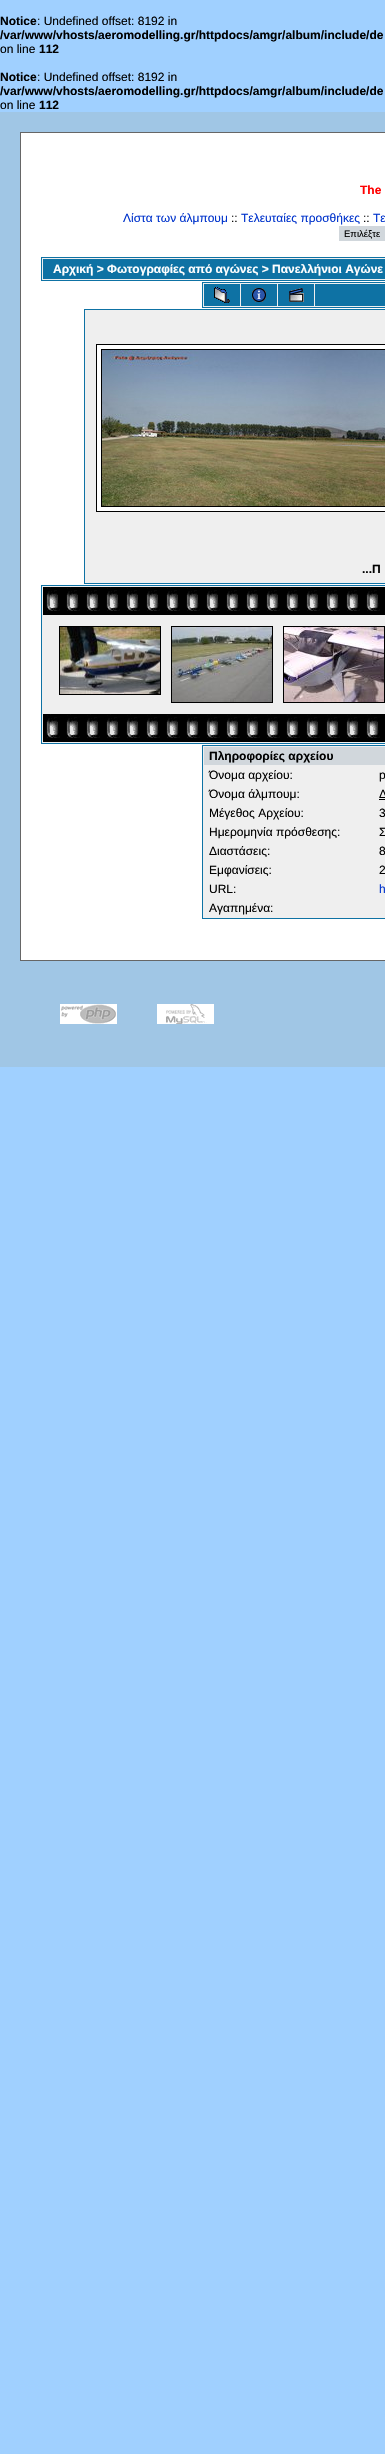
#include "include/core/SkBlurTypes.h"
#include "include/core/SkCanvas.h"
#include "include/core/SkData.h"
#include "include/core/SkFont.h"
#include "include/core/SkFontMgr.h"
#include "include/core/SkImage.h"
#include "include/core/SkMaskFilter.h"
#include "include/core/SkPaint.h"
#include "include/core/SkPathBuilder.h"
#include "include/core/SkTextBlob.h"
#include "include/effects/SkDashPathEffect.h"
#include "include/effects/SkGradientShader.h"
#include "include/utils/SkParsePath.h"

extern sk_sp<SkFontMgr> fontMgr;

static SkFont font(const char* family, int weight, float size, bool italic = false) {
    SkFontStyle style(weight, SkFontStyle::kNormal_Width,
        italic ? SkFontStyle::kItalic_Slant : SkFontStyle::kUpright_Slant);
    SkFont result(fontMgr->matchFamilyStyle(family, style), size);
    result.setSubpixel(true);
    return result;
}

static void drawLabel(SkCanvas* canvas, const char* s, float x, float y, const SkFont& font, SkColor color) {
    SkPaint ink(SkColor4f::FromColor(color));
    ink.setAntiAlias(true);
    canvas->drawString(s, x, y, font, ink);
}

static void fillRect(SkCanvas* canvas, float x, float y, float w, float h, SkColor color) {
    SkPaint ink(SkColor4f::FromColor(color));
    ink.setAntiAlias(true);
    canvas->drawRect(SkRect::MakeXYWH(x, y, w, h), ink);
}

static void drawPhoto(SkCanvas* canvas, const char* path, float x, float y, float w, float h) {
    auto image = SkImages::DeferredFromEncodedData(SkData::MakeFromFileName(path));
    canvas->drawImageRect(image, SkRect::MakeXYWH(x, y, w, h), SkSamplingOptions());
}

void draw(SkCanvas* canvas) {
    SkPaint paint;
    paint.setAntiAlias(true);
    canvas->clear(0xFFA0D0FF);
    SkFont font1 = font("Liberation Sans", 700, 12);
    drawLabel(canvas, "Notice", 0, 25, font1, 0xFF000000);
    SkFont font2 = font("Liberation Sans", 400, 12);
    drawLabel(canvas, ": Undefined offset: 8192 in", 37, 25, font2, 0xFF000000);
    drawLabel(canvas, "/var/www/vhosts/aeromodelling.gr/httpdocs/amgr/album/include/de", 0, 39, font1, 0xFF000000);
    drawLabel(canvas, "on line", 0, 53, font2, 0xFF000000);
    drawLabel(canvas, "112", 39, 53, font1, 0xFF000000);
    drawLabel(canvas, "Notice", 0, 81, font1, 0xFF000000);
    drawLabel(canvas, ": Undefined offset: 8192 in", 37, 81, font2, 0xFF000000);
    drawLabel(canvas, "/var/www/vhosts/aeromodelling.gr/httpdocs/amgr/album/include/de", 0, 95, font1, 0xFF000000);
    drawLabel(canvas, "on line", 0, 109, font2, 0xFF000000);
    drawLabel(canvas, "112", 39, 109, font1, 0xFF000000);
    fillRect(canvas, 0, 112, 385, 955, 0xFFA0C6E5);
    paint.setColor(0xFFFFFFFF);
    canvas->drawRect(SkRect::MakeXYWH(20.5f, 132.5f, 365, 828), paint);
    paint.setStroke(true);
    paint.setStrokeWidth(1);
    paint.setColor(0xFF666666);
    canvas->drawRect(SkRect::MakeXYWH(20.5f, 132.5f, 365, 828), paint);
    drawLabel(canvas, "The", 360, 194, font1, 0xFFFF0000);
    drawLabel(canvas, "Λίστα των άλμπουμ", 123, 222, font2, 0xFF0033CC);
    drawLabel(canvas, "::", 231, 222, font2, 0xFF000000);
    drawLabel(canvas, "Τελευταίες προσθήκες", 241, 222, font2, 0xFF0033CC);
    drawLabel(canvas, "::", 363, 222, font2, 0xFF000000);
    drawLabel(canvas, "Τε", 373, 222, font2, 0xFF0033CC);
    fillRect(canvas, 339, 226, 46, 15, 0xFFD1D7DC);
    SkFont font3 = font("Liberation Sans", 400, 9.5f);
    drawLabel(canvas, "Επιλέξτε", 344, 237, font3, 0xFF000000);
    paint.setStroke(false);
    paint.setColor(0xFFEFEFEF);
    canvas->drawRect(SkRect::MakeXYWH(41.5f, 257.5f, 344, 23), paint);
    paint.setStroke(true);
    paint.setColor(0xFF0E72A4);
    canvas->drawRect(SkRect::MakeXYWH(41.5f, 257.5f, 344, 23), paint);
    fillRect(canvas, 43, 259, 342, 20, 0xFF0E72A4);
    drawLabel(canvas, "Αρχική > Φωτογραφίες από αγώνες > Πανελλήνιοι Αγώνε", 53, 273, font1, 0xFFFFFFFF);
    paint.setStroke(false);
    paint.setColor(0xFFEFEFEF);
    canvas->drawRect(SkRect::MakeXYWH(202.5f, 282.5f, 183, 25), paint);
    paint.setStroke(true);
    paint.setColor(0xFF0E72A4);
    canvas->drawRect(SkRect::MakeXYWH(202.5f, 282.5f, 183, 25), paint);
    fillRect(canvas, 204, 284, 36, 22, 0xFF0E72A4);
    drawPhoto(canvas, "assets/img1.png", 214, 287, 16, 16);
    fillRect(canvas, 241, 284, 36, 22, 0xFF0E72A4);
    drawPhoto(canvas, "assets/img2.png", 252, 288, 14, 14);
    fillRect(canvas, 278, 284, 36, 22, 0xFF0E72A4);
    drawPhoto(canvas, "assets/img3.png", 289, 288, 15, 14);
    fillRect(canvas, 315, 284, 70, 22, 0xFF0E72A4);
    paint.setStroke(false);
    paint.setColor(0xFFEFEFEF);
    canvas->drawRect(SkRect::MakeXYWH(84.5f, 309.5f, 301, 274), paint);
    paint.setStroke(true);
    paint.setColor(0xFF0E72A4);
    canvas->drawRect(SkRect::MakeXYWH(84.5f, 309.5f, 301, 274), paint);
    paint.setStroke(false);
    paint.setColor(0xFFFFFFFF);
    canvas->drawRect(SkRect::MakeXYWH(96.5f, 344.5f, 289, 167), paint);
    paint.setStroke(true);
    paint.setColor(0xFF000000);
    canvas->drawRect(SkRect::MakeXYWH(96.5f, 344.5f, 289, 167), paint);
    canvas->drawRect(SkRect::MakeXYWH(101.5f, 349.5f, 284, 157), paint);
    drawPhoto(canvas, "assets/img4.png", 102, 350, 283, 156);
    drawLabel(canvas, "...Π", 362, 573, font1, 0xFF000000);
    paint.setStroke(false);
    paint.setColor(0xFFEFEFEF);
    canvas->drawRect(SkRect::MakeXYWH(41.5f, 585.5f, 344, 158), paint);
    paint.setStroke(true);
    paint.setColor(0xFF0E72A4);
    canvas->drawRect(SkRect::MakeXYWH(41.5f, 585.5f, 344, 158), paint);
    drawPhoto(canvas, "assets/img5.png", 43, 587, 342, 28);
    paint.setColor(0xFF000000);
    canvas->drawRect(SkRect::MakeXYWH(59.5f, 626.5f, 101, 68), paint);
    drawPhoto(canvas, "assets/img6.png", 60, 627, 100, 67);
    canvas->drawRect(SkRect::MakeXYWH(171.5f, 626.5f, 101, 76), paint);
    drawPhoto(canvas, "assets/img7.png", 172, 627, 100, 75);
    canvas->drawRect(SkRect::MakeXYWH(283.5f, 626.5f, 101, 76), paint);
    drawPhoto(canvas, "assets/img8.png", 284, 627, 100, 75);
    drawPhoto(canvas, "assets/img5.png", 43, 714, 342, 28);
    paint.setStroke(false);
    paint.setColor(0xFFEFEFEF);
    canvas->drawRect(SkRect::MakeXYWH(202.5f, 745.5f, 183, 173), paint);
    paint.setStroke(true);
    paint.setColor(0xFF0E72A4);
    canvas->drawRect(SkRect::MakeXYWH(202.5f, 745.5f, 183, 173), paint);
    fillRect(canvas, 204, 747, 181, 18, 0xFFD1D7DC);
    drawLabel(canvas, "Πληροφορίες αρχείου", 209, 760, font1, 0xFF000000);
    drawLabel(canvas, "Όνομα αρχείου:", 209, 779, font2, 0xFF000000);
    drawLabel(canvas, "p", 379, 779, font2, 0xFF000000);
    drawLabel(canvas, "Όνομα άλμπουμ:", 209, 798, font2, 0xFF000000);
    drawLabel(canvas, "Δ", 379, 798, font2, 0xFF000000);
    fillRect(canvas, 379, 799, 6, 1, 0xFF000000);
    drawLabel(canvas, "Μέγεθος Αρχείου:", 209, 817, font2, 0xFF000000);
    drawLabel(canvas, "3", 379, 817, font2, 0xFF000000);
    drawLabel(canvas, "Ημερομηνία πρόσθεσης:", 209, 836, font2, 0xFF000000);
    drawLabel(canvas, "Σ", 379, 836, font2, 0xFF000000);
    drawLabel(canvas, "Διαστάσεις:", 209, 855, font2, 0xFF000000);
    drawLabel(canvas, "8", 379, 855, font2, 0xFF000000);
    drawLabel(canvas, "Εμφανίσεις:", 209, 874, font2, 0xFF000000);
    drawLabel(canvas, "2", 379, 874, font2, 0xFF000000);
    drawLabel(canvas, "URL:", 209, 893, font2, 0xFF000000);
    drawLabel(canvas, "h", 379, 893, font2, 0xFF0033CC);
    drawLabel(canvas, "Αγαπημένα:", 209, 912, font2, 0xFF000000);
    drawPhoto(canvas, "assets/img9.png", 60, 1004, 57, 20);
    drawPhoto(canvas, "assets/img10.png", 157, 1004, 57, 20);
}
